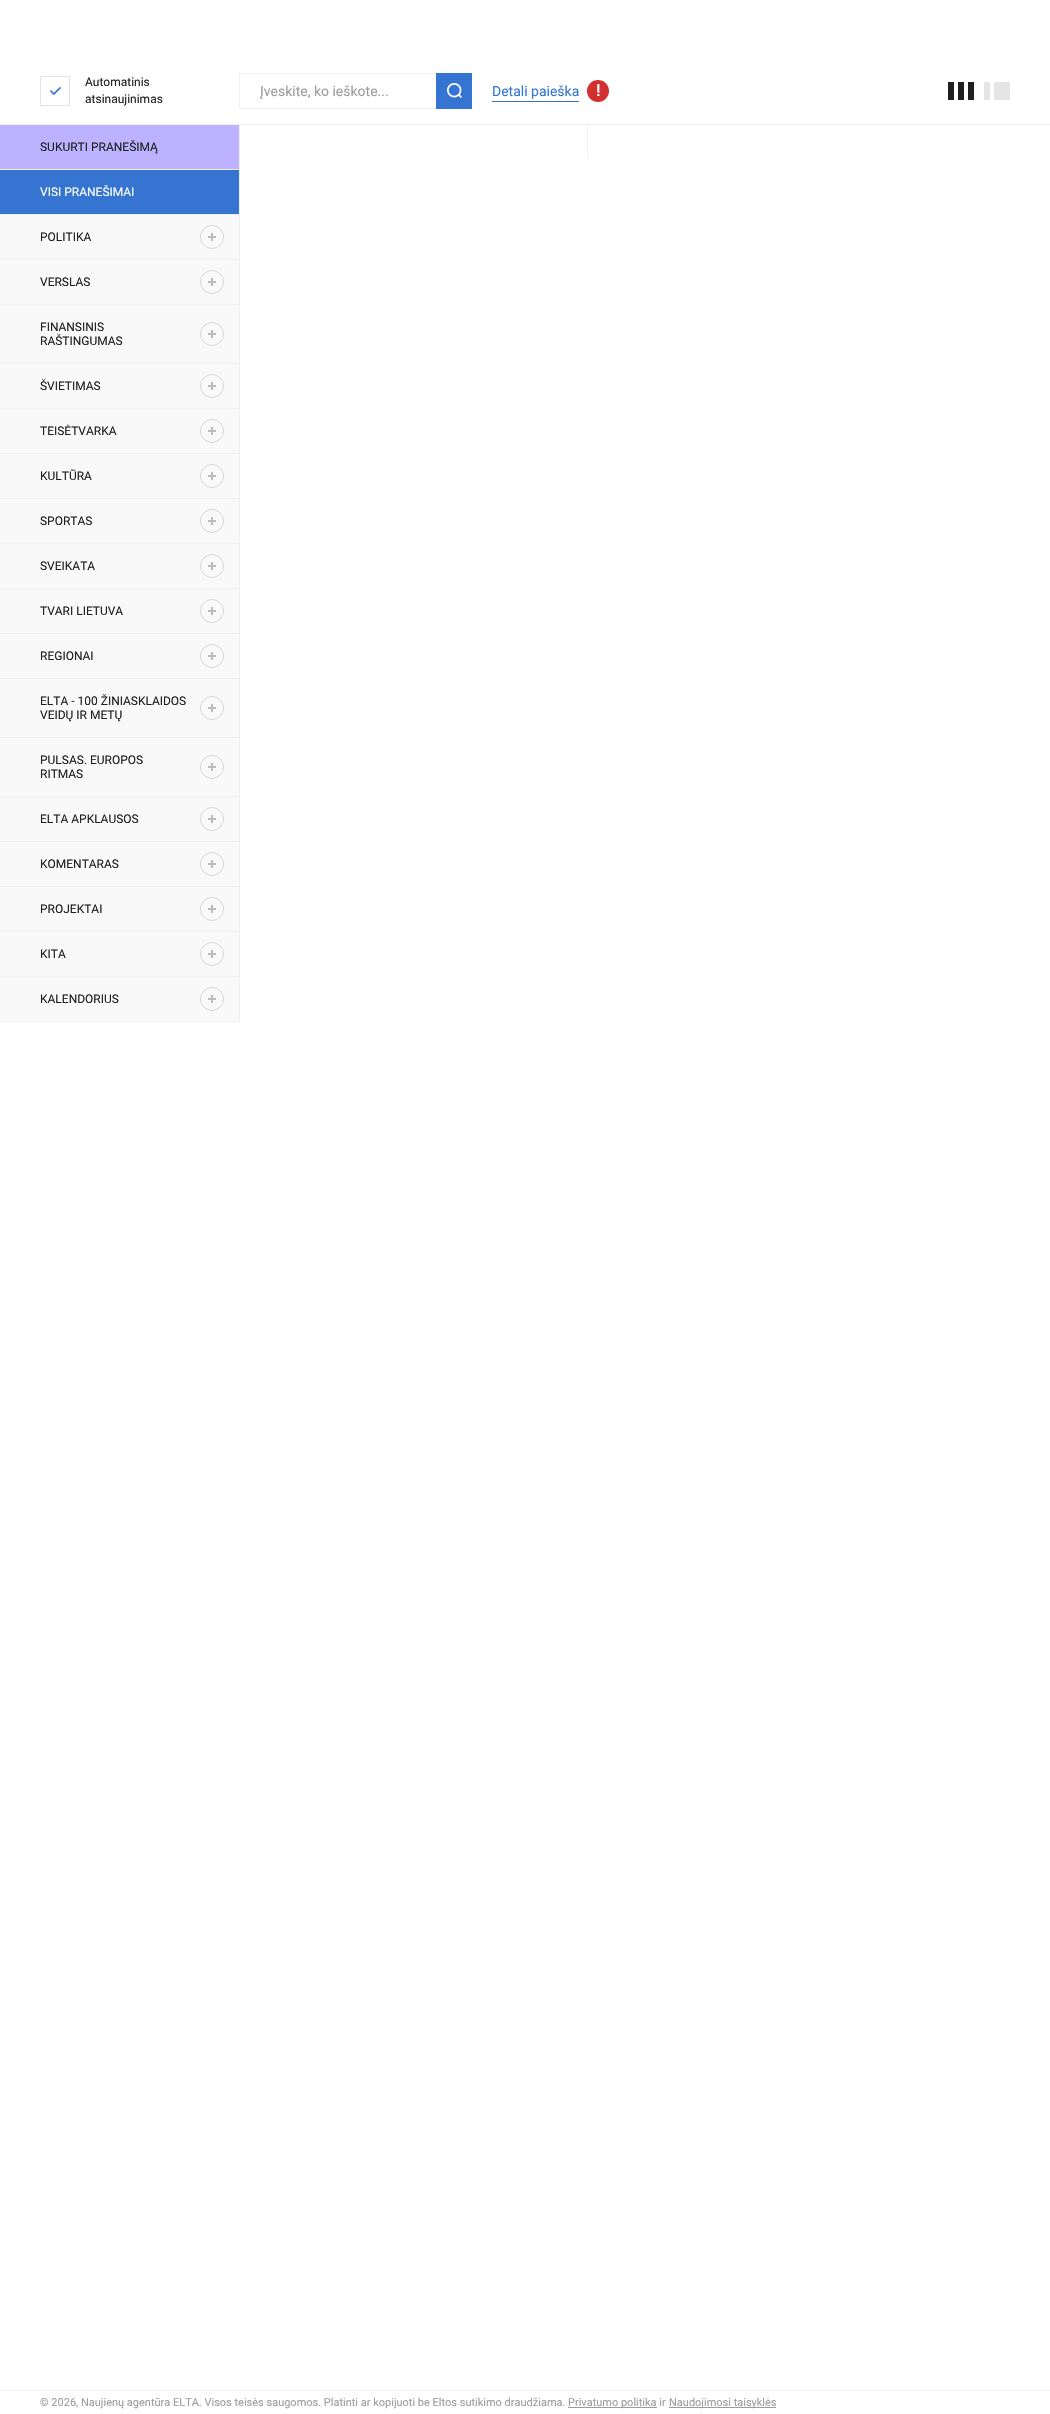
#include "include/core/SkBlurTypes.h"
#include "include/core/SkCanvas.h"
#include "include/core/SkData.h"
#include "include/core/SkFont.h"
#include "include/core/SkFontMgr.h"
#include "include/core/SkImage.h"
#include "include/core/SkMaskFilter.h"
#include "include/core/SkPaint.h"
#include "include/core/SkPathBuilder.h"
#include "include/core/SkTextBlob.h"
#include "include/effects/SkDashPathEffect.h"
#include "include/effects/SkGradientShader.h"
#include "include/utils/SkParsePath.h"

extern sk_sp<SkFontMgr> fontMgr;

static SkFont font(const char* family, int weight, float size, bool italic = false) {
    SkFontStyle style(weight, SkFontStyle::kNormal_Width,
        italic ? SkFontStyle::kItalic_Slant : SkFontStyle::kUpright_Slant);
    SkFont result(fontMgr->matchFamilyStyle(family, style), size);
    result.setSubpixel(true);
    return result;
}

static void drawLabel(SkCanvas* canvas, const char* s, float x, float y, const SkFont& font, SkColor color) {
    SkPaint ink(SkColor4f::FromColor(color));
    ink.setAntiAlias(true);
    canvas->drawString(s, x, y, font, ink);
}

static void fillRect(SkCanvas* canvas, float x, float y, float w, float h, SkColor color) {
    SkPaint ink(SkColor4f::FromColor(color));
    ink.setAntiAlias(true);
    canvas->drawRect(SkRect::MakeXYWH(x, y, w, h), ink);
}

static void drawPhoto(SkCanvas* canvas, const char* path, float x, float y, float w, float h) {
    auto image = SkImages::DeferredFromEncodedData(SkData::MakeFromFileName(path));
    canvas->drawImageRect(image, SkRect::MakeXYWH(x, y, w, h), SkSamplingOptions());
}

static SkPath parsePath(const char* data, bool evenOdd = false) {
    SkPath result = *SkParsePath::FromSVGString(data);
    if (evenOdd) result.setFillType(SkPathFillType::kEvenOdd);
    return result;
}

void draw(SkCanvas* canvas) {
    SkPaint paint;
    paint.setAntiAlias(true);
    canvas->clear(0xFFFFFFFF);
    paint.setStroke(true);
    paint.setStrokeWidth(1);
    paint.setColor(0xFFE5E5E5);
    canvas->drawRect(SkRect::MakeXYWH(40.5f, 76.5f, 29, 29), paint);
    SkFont font1 = font("Roboto", 400, 12);
    drawLabel(canvas, "Automatinis", 85, 86, font1, 0xFF202020);
    drawLabel(canvas, "atsinaujinimas", 85, 103, font1, 0xFF202020);
    drawPhoto(canvas, "assets/img1.png", 50, 87, 11, 8);
    paint.setColor(0xFFEFEFEF);
    canvas->drawRect(SkRect::MakeXYWH(239.5f, 73.5f, 232, 35), paint);
    SkFont font2 = font("Roboto", 400, 14);
    drawLabel(canvas, "Įveskite, ko ieškote...", 260, 96, font2, 0xFF9C9C9C);
    fillRect(canvas, 436, 73, 36, 36, 0xFF3574D1);
    drawPhoto(canvas, "assets/img2.png", 447, 83, 15, 15);
    drawLabel(canvas, "Detali paieška", 492, 96, font2, 0xFF3574D1);
    fillRect(canvas, 492, 101, 87, 1, 0xFF3574D1);
    paint.setStroke(false);
    paint.setColor(0xFFD32F2F);
    canvas->drawCircle(598, 91, 11, paint);
    SkFont font3 = font("Roboto", 700, 16);
    drawLabel(canvas, "!", 596, 96, font3, 0xFFFFFFFF);
    drawPhoto(canvas, "assets/img3.png", 948, 82, 26, 18);
    paint.setColor(0xFFE5E5E5);
    canvas->drawPath(parsePath("M984 82H990V100H984ZM994 82H1010V100H994Z"), paint);
    fillRect(canvas, 0, 124, 1050, 1, 0xFFEFEFEF);
    fillRect(canvas, 0, 215, 239, 806, 0xFFF9F9F9);
    fillRect(canvas, 239, 125, 1, 897, 0xFFEFEFEF);
    fillRect(canvas, 0, 169, 239, 1, 0xFFEFEFEF);
    fillRect(canvas, 0, 125, 239, 44, 0xFFBDB2FF);
    drawLabel(canvas, "SUKURTI PRANEŠIMĄ", 40, 151, font1, 0xFF202020);
    fillRect(canvas, 0, 214, 239, 1, 0xFFEFEFEF);
    fillRect(canvas, 0, 170, 239, 44, 0xFF3574D1);
    drawLabel(canvas, "VISI PRANEŠIMAI", 40, 196, font1, 0xFFFFFFFF);
    fillRect(canvas, 0, 259, 239, 1, 0xFFEFEFEF);
    drawLabel(canvas, "POLITIKA", 40, 241, font1, 0xFF202020);
    paint.setStroke(true);
    paint.setColor(0xFFD6D6D6);
    canvas->drawCircle(212, 237, 11.5f, paint);
    fillRect(canvas, 211, 233, 2, 8, 0xFFBBBBBB);
    fillRect(canvas, 208, 236, 8, 2, 0xFFBBBBBB);
    fillRect(canvas, 0, 304, 239, 1, 0xFFEFEFEF);
    drawLabel(canvas, "VERSLAS", 40, 286, font1, 0xFF202020);
    canvas->drawCircle(212, 282, 11.5f, paint);
    fillRect(canvas, 211, 278, 2, 8, 0xFFBBBBBB);
    fillRect(canvas, 208, 281, 8, 2, 0xFFBBBBBB);
    fillRect(canvas, 0, 363, 239, 1, 0xFFEFEFEF);
    drawLabel(canvas, "FINANSINIS", 40, 331, font1, 0xFF202020);
    drawLabel(canvas, "RAŠTINGUMAS", 40, 345, font1, 0xFF202020);
    canvas->drawCircle(212, 334, 11.5f, paint);
    fillRect(canvas, 211, 330, 2, 8, 0xFFBBBBBB);
    fillRect(canvas, 208, 333, 8, 2, 0xFFBBBBBB);
    fillRect(canvas, 0, 408, 239, 1, 0xFFEFEFEF);
    drawLabel(canvas, "ŠVIETIMAS", 40, 390, font1, 0xFF202020);
    canvas->drawCircle(212, 386, 11.5f, paint);
    fillRect(canvas, 211, 382, 2, 8, 0xFFBBBBBB);
    fillRect(canvas, 208, 385, 8, 2, 0xFFBBBBBB);
    fillRect(canvas, 0, 453, 239, 1, 0xFFEFEFEF);
    drawLabel(canvas, "TEISĖTVARKA", 40, 435, font1, 0xFF202020);
    canvas->drawCircle(212, 431, 11.5f, paint);
    fillRect(canvas, 211, 427, 2, 8, 0xFFBBBBBB);
    fillRect(canvas, 208, 430, 8, 2, 0xFFBBBBBB);
    fillRect(canvas, 0, 498, 239, 1, 0xFFEFEFEF);
    drawLabel(canvas, "KULTŪRA", 40, 480, font1, 0xFF202020);
    canvas->drawCircle(212, 476, 11.5f, paint);
    fillRect(canvas, 211, 472, 2, 8, 0xFFBBBBBB);
    fillRect(canvas, 208, 475, 8, 2, 0xFFBBBBBB);
    fillRect(canvas, 0, 543, 239, 1, 0xFFEFEFEF);
    drawLabel(canvas, "SPORTAS", 40, 525, font1, 0xFF202020);
    canvas->drawCircle(212, 521, 11.5f, paint);
    fillRect(canvas, 211, 517, 2, 8, 0xFFBBBBBB);
    fillRect(canvas, 208, 520, 8, 2, 0xFFBBBBBB);
    fillRect(canvas, 0, 588, 239, 1, 0xFFEFEFEF);
    drawLabel(canvas, "SVEIKATA", 40, 570, font1, 0xFF202020);
    canvas->drawCircle(212, 566, 11.5f, paint);
    fillRect(canvas, 211, 562, 2, 8, 0xFFBBBBBB);
    fillRect(canvas, 208, 565, 8, 2, 0xFFBBBBBB);
    fillRect(canvas, 0, 633, 239, 1, 0xFFEFEFEF);
    drawLabel(canvas, "TVARI LIETUVA", 40, 615, font1, 0xFF202020);
    canvas->drawCircle(212, 611, 11.5f, paint);
    fillRect(canvas, 211, 607, 2, 8, 0xFFBBBBBB);
    fillRect(canvas, 208, 610, 8, 2, 0xFFBBBBBB);
    fillRect(canvas, 0, 678, 239, 1, 0xFFEFEFEF);
    drawLabel(canvas, "REGIONAI", 40, 660, font1, 0xFF202020);
    canvas->drawCircle(212, 656, 11.5f, paint);
    fillRect(canvas, 211, 652, 2, 8, 0xFFBBBBBB);
    fillRect(canvas, 208, 655, 8, 2, 0xFFBBBBBB);
    fillRect(canvas, 0, 737, 239, 1, 0xFFEFEFEF);
    drawLabel(canvas, "ELTA - 100 ŽINIASKLAIDOS", 40, 705, font1, 0xFF202020);
    drawLabel(canvas, "VEIDŲ IR METŲ", 40, 719, font1, 0xFF202020);
    canvas->drawCircle(212, 708, 11.5f, paint);
    fillRect(canvas, 211, 704, 2, 8, 0xFFBBBBBB);
    fillRect(canvas, 208, 707, 8, 2, 0xFFBBBBBB);
    fillRect(canvas, 0, 796, 239, 1, 0xFFEFEFEF);
    drawLabel(canvas, "PULSAS. EUROPOS", 40, 764, font1, 0xFF202020);
    drawLabel(canvas, "RITMAS", 40, 778, font1, 0xFF202020);
    canvas->drawCircle(212, 767, 11.5f, paint);
    fillRect(canvas, 211, 763, 2, 8, 0xFFBBBBBB);
    fillRect(canvas, 208, 766, 8, 2, 0xFFBBBBBB);
    fillRect(canvas, 0, 841, 239, 1, 0xFFEFEFEF);
    drawLabel(canvas, "ELTA APKLAUSOS", 40, 823, font1, 0xFF202020);
    canvas->drawCircle(212, 819, 11.5f, paint);
    fillRect(canvas, 211, 815, 2, 8, 0xFFBBBBBB);
    fillRect(canvas, 208, 818, 8, 2, 0xFFBBBBBB);
    fillRect(canvas, 0, 886, 239, 1, 0xFFEFEFEF);
    drawLabel(canvas, "KOMENTARAS", 40, 868, font1, 0xFF202020);
    canvas->drawCircle(212, 864, 11.5f, paint);
    fillRect(canvas, 211, 860, 2, 8, 0xFFBBBBBB);
    fillRect(canvas, 208, 863, 8, 2, 0xFFBBBBBB);
    fillRect(canvas, 0, 931, 239, 1, 0xFFEFEFEF);
    drawLabel(canvas, "PROJEKTAI", 40, 913, font1, 0xFF202020);
    canvas->drawCircle(212, 909, 11.5f, paint);
    fillRect(canvas, 211, 905, 2, 8, 0xFFBBBBBB);
    fillRect(canvas, 208, 908, 8, 2, 0xFFBBBBBB);
    fillRect(canvas, 0, 976, 239, 1, 0xFFEFEFEF);
    drawLabel(canvas, "KITA", 40, 958, font1, 0xFF202020);
    canvas->drawCircle(212, 954, 11.5f, paint);
    fillRect(canvas, 211, 950, 2, 8, 0xFFBBBBBB);
    fillRect(canvas, 208, 953, 8, 2, 0xFFBBBBBB);
    fillRect(canvas, 0, 1021, 239, 1, 0xFFEFEFEF);
    drawLabel(canvas, "KALENDORIUS", 40, 1003, font1, 0xFF202020);
    canvas->drawCircle(212, 999, 11.5f, paint);
    fillRect(canvas, 211, 995, 2, 8, 0xFFBBBBBB);
    fillRect(canvas, 208, 998, 8, 2, 0xFFBBBBBB);
    fillRect(canvas, 587, 125, 1, 32, 0xFFEFEFEF);
    fillRect(canvas, 0, 2390, 1050, 1, 0xFFEFEFEF);
    SkFont font4 = font("Roboto", 400, 11);
    drawLabel(canvas, "© 2026, Naujienų agentūra ELTA. Visos teisės saugomos. Platinti ar kopijuoti be Eltos sutikimo draudžiama.", 40, 2406, font4, 0xFF9C9C9C);
    fillRect(canvas, 568, 2407, 89, 1, 0xFF9C9C9C);
    drawLabel(canvas, "Privatumo politika ir", 568, 2406, font4, 0xFF9C9C9C);
    fillRect(canvas, 669, 2407, 107, 1, 0xFF9C9C9C);
    drawLabel(canvas, "Naudojimosi taisyklės", 669, 2406, font4, 0xFF9C9C9C);
}
